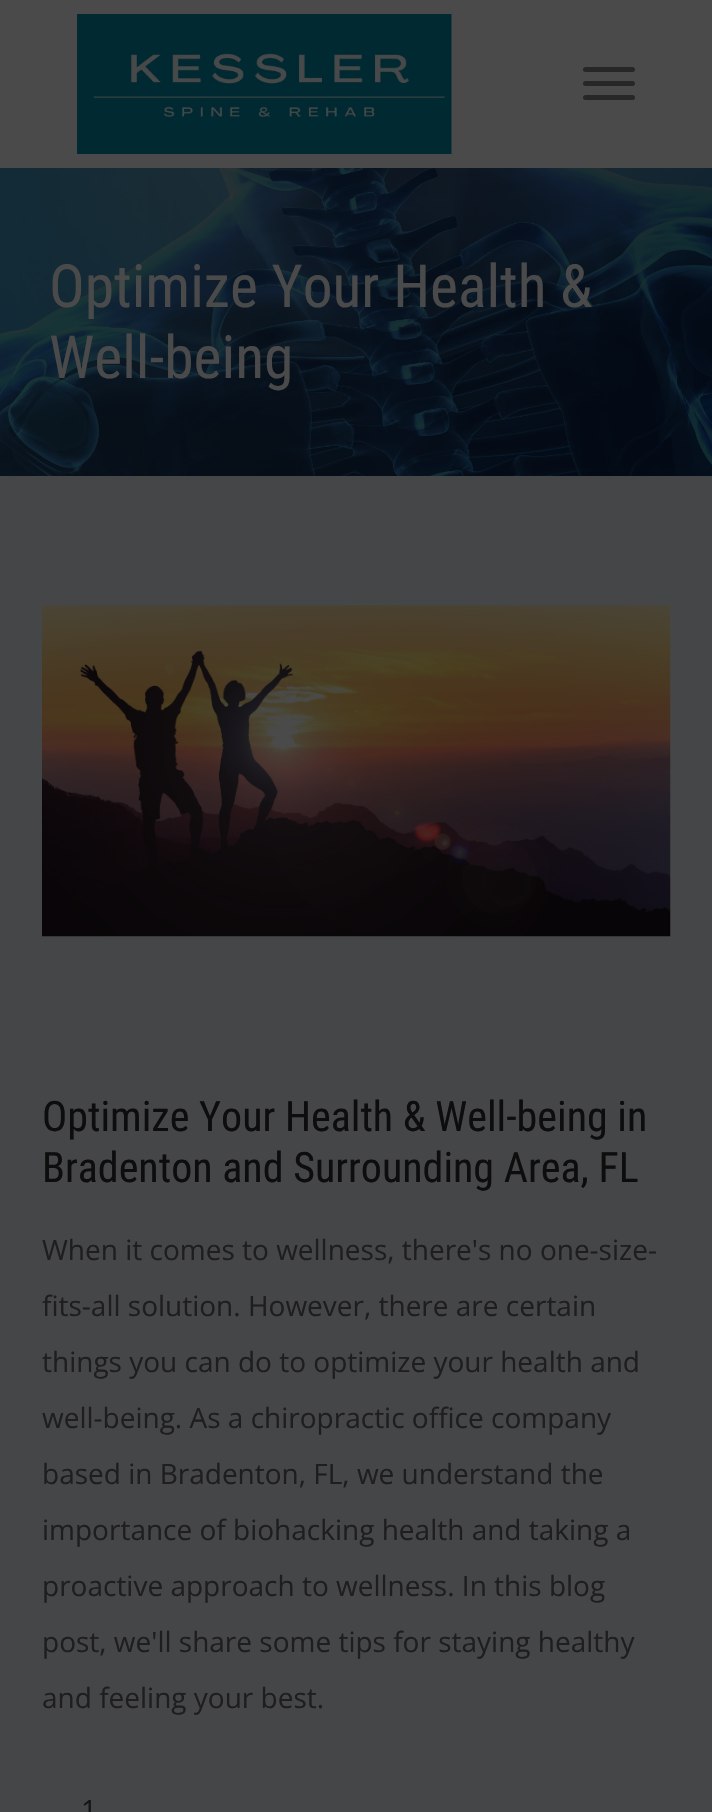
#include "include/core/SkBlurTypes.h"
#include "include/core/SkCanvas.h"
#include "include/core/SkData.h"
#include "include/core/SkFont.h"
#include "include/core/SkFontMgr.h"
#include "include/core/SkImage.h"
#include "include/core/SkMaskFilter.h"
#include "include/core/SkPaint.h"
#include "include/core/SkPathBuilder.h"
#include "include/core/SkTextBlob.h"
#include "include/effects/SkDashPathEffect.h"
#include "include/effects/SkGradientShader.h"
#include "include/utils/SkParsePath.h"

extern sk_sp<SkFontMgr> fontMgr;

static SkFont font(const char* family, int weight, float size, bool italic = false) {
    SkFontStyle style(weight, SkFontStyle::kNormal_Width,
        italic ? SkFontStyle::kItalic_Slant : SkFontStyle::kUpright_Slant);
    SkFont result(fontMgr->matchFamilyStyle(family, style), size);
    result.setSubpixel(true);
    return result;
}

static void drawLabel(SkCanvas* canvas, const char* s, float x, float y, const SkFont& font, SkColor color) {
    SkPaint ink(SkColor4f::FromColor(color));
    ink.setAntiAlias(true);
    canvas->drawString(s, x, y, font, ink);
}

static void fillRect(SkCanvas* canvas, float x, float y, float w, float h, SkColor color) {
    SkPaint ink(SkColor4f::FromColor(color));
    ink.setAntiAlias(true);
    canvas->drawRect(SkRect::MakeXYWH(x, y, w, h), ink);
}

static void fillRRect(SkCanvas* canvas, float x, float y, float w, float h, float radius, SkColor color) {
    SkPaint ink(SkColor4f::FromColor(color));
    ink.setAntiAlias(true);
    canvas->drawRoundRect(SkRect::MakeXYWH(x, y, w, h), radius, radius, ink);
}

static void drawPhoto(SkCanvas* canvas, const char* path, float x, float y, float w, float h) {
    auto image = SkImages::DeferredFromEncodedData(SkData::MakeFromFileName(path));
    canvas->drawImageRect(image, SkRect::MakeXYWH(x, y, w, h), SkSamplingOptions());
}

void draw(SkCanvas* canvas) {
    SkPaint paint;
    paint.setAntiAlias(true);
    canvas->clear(0xFF4A4A4A);
    drawPhoto(canvas, "assets/img1.png", 77, 14, 375, 140);
    fillRRect(canvas, 583, 67, 52, 5, 2.5f, 0xFF272727);
    fillRRect(canvas, 583, 81, 52, 5, 2.5f, 0xFF272727);
    fillRRect(canvas, 583, 95, 52, 5, 2.5f, 0xFF272727);
    drawPhoto(canvas, "assets/img2.png", 0, 168, 712, 308);
    SkFont font1 = font("Roboto Condensed", 400, 59.5f);
    drawLabel(canvas, "Optimize Your Health &", 49, 307, font1, 0xFF4A4A4A);
    drawLabel(canvas, "Well-being", 49, 378, font1, 0xFF4A4A4A);
    fillRect(canvas, 0, 476, 712, 1336, 0xFF454647);
    drawPhoto(canvas, "assets/img3.png", 42, 605, 629, 332);
    SkFont font2 = font("Roboto Condensed", 400, 42);
    drawLabel(canvas, "Optimize Your Health & Well-being in", 42, 1131, font2, 0xFF0D0D0D);
    drawLabel(canvas, "Bradenton and Surrounding Area, FL", 42, 1182, font2, 0xFF0D0D0D);
    SkFont font3 = font("Open Sans", 400, 28);
    drawLabel(canvas, "When it comes to wellness, there's no one-size-", 42, 1260, font3, 0xFF1E1E1E);
    drawLabel(canvas, "fits-all solution. However, there are certain", 42, 1316, font3, 0xFF1E1E1E);
    drawLabel(canvas, "things you can do to optimize your health and", 42, 1372, font3, 0xFF1E1E1E);
    drawLabel(canvas, "well-being. As a chiropractic office company", 42, 1428, font3, 0xFF1E1E1E);
    drawLabel(canvas, "based in Bradenton, FL, we understand the", 42, 1484, font3, 0xFF1E1E1E);
    drawLabel(canvas, "importance of biohacking health and taking a", 42, 1540, font3, 0xFF1E1E1E);
    drawLabel(canvas, "proactive approach to wellness. In this blog", 42, 1596, font3, 0xFF1E1E1E);
    drawLabel(canvas, "post, we'll share some tips for staying healthy", 42, 1652, font3, 0xFF1E1E1E);
    drawLabel(canvas, "and feeling your best.", 42, 1708, font3, 0xFF1E1E1E);
    drawLabel(canvas, "1", 81, 1820, font3, 0xFF151515);
}
